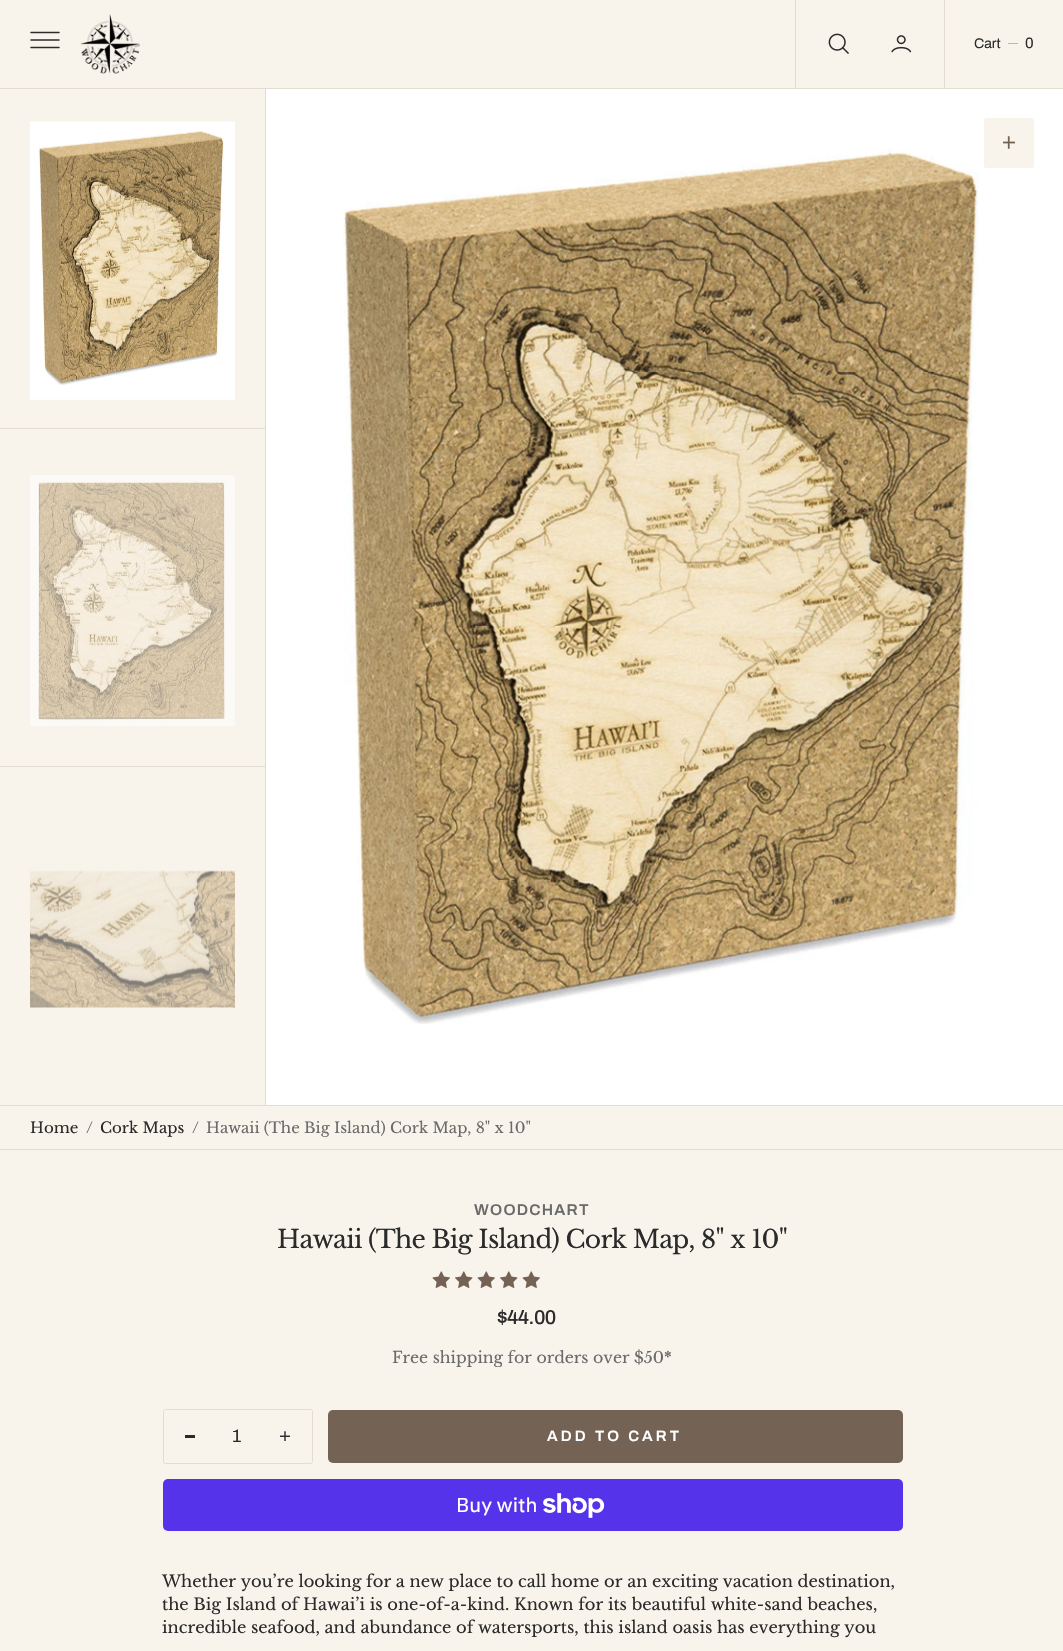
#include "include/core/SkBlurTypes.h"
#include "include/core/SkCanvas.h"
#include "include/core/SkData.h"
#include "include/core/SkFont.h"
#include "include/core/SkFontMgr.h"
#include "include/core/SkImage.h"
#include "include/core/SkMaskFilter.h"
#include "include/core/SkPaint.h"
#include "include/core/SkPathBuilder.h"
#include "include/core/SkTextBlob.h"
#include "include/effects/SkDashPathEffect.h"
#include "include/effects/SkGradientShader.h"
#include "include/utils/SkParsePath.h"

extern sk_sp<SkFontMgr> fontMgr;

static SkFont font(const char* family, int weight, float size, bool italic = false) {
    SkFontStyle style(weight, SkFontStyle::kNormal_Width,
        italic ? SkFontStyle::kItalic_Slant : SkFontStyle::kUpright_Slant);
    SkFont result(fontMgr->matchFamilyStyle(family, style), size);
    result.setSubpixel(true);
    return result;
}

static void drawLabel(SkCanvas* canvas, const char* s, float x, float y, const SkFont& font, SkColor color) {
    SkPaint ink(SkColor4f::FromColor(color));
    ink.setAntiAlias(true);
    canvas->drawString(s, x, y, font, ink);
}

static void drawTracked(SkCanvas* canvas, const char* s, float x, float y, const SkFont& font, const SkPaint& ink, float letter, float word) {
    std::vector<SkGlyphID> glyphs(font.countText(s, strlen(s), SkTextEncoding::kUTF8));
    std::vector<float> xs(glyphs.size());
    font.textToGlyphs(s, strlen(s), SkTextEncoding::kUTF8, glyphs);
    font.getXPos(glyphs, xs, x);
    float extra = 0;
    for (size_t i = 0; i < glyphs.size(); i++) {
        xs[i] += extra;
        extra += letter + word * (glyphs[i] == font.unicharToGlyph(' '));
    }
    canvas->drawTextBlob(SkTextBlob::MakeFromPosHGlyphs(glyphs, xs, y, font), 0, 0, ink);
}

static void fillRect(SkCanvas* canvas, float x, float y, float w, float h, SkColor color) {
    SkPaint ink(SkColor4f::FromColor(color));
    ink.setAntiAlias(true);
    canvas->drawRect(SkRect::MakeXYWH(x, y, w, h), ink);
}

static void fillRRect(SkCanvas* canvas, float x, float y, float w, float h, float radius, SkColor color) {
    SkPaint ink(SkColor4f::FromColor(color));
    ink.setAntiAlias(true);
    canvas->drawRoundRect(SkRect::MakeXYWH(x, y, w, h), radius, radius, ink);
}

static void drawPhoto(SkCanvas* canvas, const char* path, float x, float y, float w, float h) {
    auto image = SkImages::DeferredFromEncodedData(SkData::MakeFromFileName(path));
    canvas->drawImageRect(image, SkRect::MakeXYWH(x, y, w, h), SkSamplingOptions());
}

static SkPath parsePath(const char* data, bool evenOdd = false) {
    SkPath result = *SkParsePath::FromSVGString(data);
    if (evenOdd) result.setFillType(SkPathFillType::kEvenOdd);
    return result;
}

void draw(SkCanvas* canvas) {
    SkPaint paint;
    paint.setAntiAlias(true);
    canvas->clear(0xFFF8F4EC);
    fillRect(canvas, 265, 88, 1, 1018, 0xFFE2DDD0);
    fillRect(canvas, 0, 88, 1063, 1, 0xFFE2DDD0);
    paint.setStroke(true);
    paint.setStrokeWidth(1.5f);
    paint.setStrokeCap(SkPaint::kRound_Cap);
    paint.setColor(0xFF2B2B2B);
    canvas->drawPath(parsePath("M31 32.5H59M31 40H59M31 47.5H59"), paint);
    drawPhoto(canvas, "assets/img1.png", 80, 14, 60, 60);
    fillRect(canvas, 795, 0, 1, 88, 0xFFE2DDD0);
    drawPhoto(canvas, "assets/img2.png", 828, 33, 21, 21);
    drawPhoto(canvas, "assets/img3.png", 891, 35, 21, 18);
    fillRect(canvas, 944, 0, 1, 88, 0xFFE2DDD0);
    SkFont font1 = font("Archivo", 400, 14);
    drawLabel(canvas, "Cart", 974, 48, font1, 0xFF2B2B2B);
    fillRect(canvas, 1008, 43, 10, 1, 0xFFBAB8B2);
    SkFont font2 = font("Archivo", 400, 15);
    drawLabel(canvas, "0", 1025, 48, font2, 0xFF2B2B2B);
    drawPhoto(canvas, "assets/img4.png", 30, 121, 205, 279);
    fillRect(canvas, 0, 428, 265, 1, 0xFFE2DDD0);
    drawPhoto(canvas, "assets/img5.png", 30, 475, 205, 251);
    fillRect(canvas, 0, 766, 265, 1, 0xFFE2DDD0);
    drawPhoto(canvas, "assets/img6.png", 30, 870, 205, 138);
    fillRect(canvas, 266, 89, 797, 1016, 0xFFFFFFFF);
    fillRRect(canvas, 984, 118, 50, 50, 2.5f, 0xFFF8F4EC);
    drawPhoto(canvas, "assets/img7.png", 1003, 136, 12, 13);
    drawPhoto(canvas, "assets/img8.png", 343, 148, 636, 876);
    fillRect(canvas, 0, 1105, 1063, 1, 0xFFE2DDD0);
    fillRect(canvas, 0, 1149, 1063, 1, 0xFFE2DDD0);
    SkFont font3 = font("Libre Baskerville", 400, 15);
    drawLabel(canvas, "Home", 30, 1133, font3, 0xFF2B2B2B);
    drawLabel(canvas, "/", 86, 1133, font3, 0xFF6B6B6B);
    drawLabel(canvas, "Cork Maps", 100, 1133, font3, 0xFF2B2B2B);
    drawLabel(canvas, "/", 192, 1133, font3, 0xFF6B6B6B);
    drawLabel(canvas, "Hawaii (The Big Island) Cork Map, 8\" x 10\"", 206, 1133, font3, 0xFF6B6B6B);
    SkFont font4 = font("Archivo", 600, 15.5f);
    paint.setStroke(false);
    paint.setColor(0xFF6B6B6B);
    drawTracked(canvas, "WOODCHART", 474, 1215, font4, paint, 1.25f, 0);
    SkFont font5 = font("Libre Baskerville", 400, 25);
    paint.setColor(0xFF2B2B2B);
    drawTracked(canvas, "Hawaii (The Big Island) Cork Map, 8\" x 10\"", 277, 1248, font5, paint, -0.75f, 0);
    drawPhoto(canvas, "assets/img9.png", 432, 1271, 18, 17);
    drawPhoto(canvas, "assets/img10.png", 455, 1271, 18, 17);
    drawPhoto(canvas, "assets/img9.png", 477, 1271, 18, 17);
    drawPhoto(canvas, "assets/img10.png", 500, 1271, 18, 17);
    drawPhoto(canvas, "assets/img9.png", 522, 1271, 18, 17);
    SkFont font6 = font("Archivo", 500, 20);
    drawTracked(canvas, "$44.00", 497, 1324, font6, paint, -0.5f, 0);
    SkFont font7 = font("Libre Baskerville", 400, 15.75f);
    drawLabel(canvas, "Free shipping for orders over $50", 392, 1363, font7, 0xFF6B6B6B);
    SkFont font8 = font("Libre Baskerville", 700, 15.75f);
    drawLabel(canvas, "*", 664, 1363, font8, 0xFF6B6B6B);
    paint.setStroke(true);
    paint.setStrokeWidth(1);
    paint.setStrokeCap(SkPaint::kButt_Cap);
    paint.setColor(0xFFE2DDD0);
    canvas->drawRoundRect(SkRect::MakeXYWH(163.5f, 1409.5f, 149, 54), 2, 2, paint);
    fillRect(canvas, 185, 1435, 10, 3, 0xFF2B2B2B);
    SkFont font9 = font("Archivo", 400, 18);
    drawLabel(canvas, "1", 232, 1442, font9, 0xFF2B2B2B);
    drawPhoto(canvas, "assets/img11.png", 280, 1431, 10, 10);
    fillRRect(canvas, 328, 1410, 575, 53, 5, 0xFF746355);
    SkFont font10 = font("Archivo", 600, 15);
    paint.setStroke(false);
    paint.setColor(0xFFFFFFFF);
    drawTracked(canvas, "ADD TO CART", 547, 1441, font10, paint, 3.1f, 0);
    fillRRect(canvas, 163, 1479, 740, 52, 5, 0xFF5433EB);
    SkFont font11 = font("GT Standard", 400, 20);
    drawLabel(canvas, "Buy with", 456, 1512, font11, 0xFFFFFFFF);
    drawPhoto(canvas, "assets/img12.png", 543, 1493, 62, 25);
    SkFont font12 = font("Libre Baskerville", 400, 16.25f);
    drawLabel(canvas, "Whether you’re looking for a new place to call home or an exciting vacation destination,", 162, 1587, font12, 0xFF2B2B2B);
    drawLabel(canvas, "the Big Island of Hawai’i is one-of-a-kind. Known for its beautiful white-sand beaches,", 162, 1610, font12, 0xFF2B2B2B);
    drawLabel(canvas, "incredible seafood, and abundance of watersports, this island oasis has everything you", 162, 1633, font12, 0xFF2B2B2B);
}
